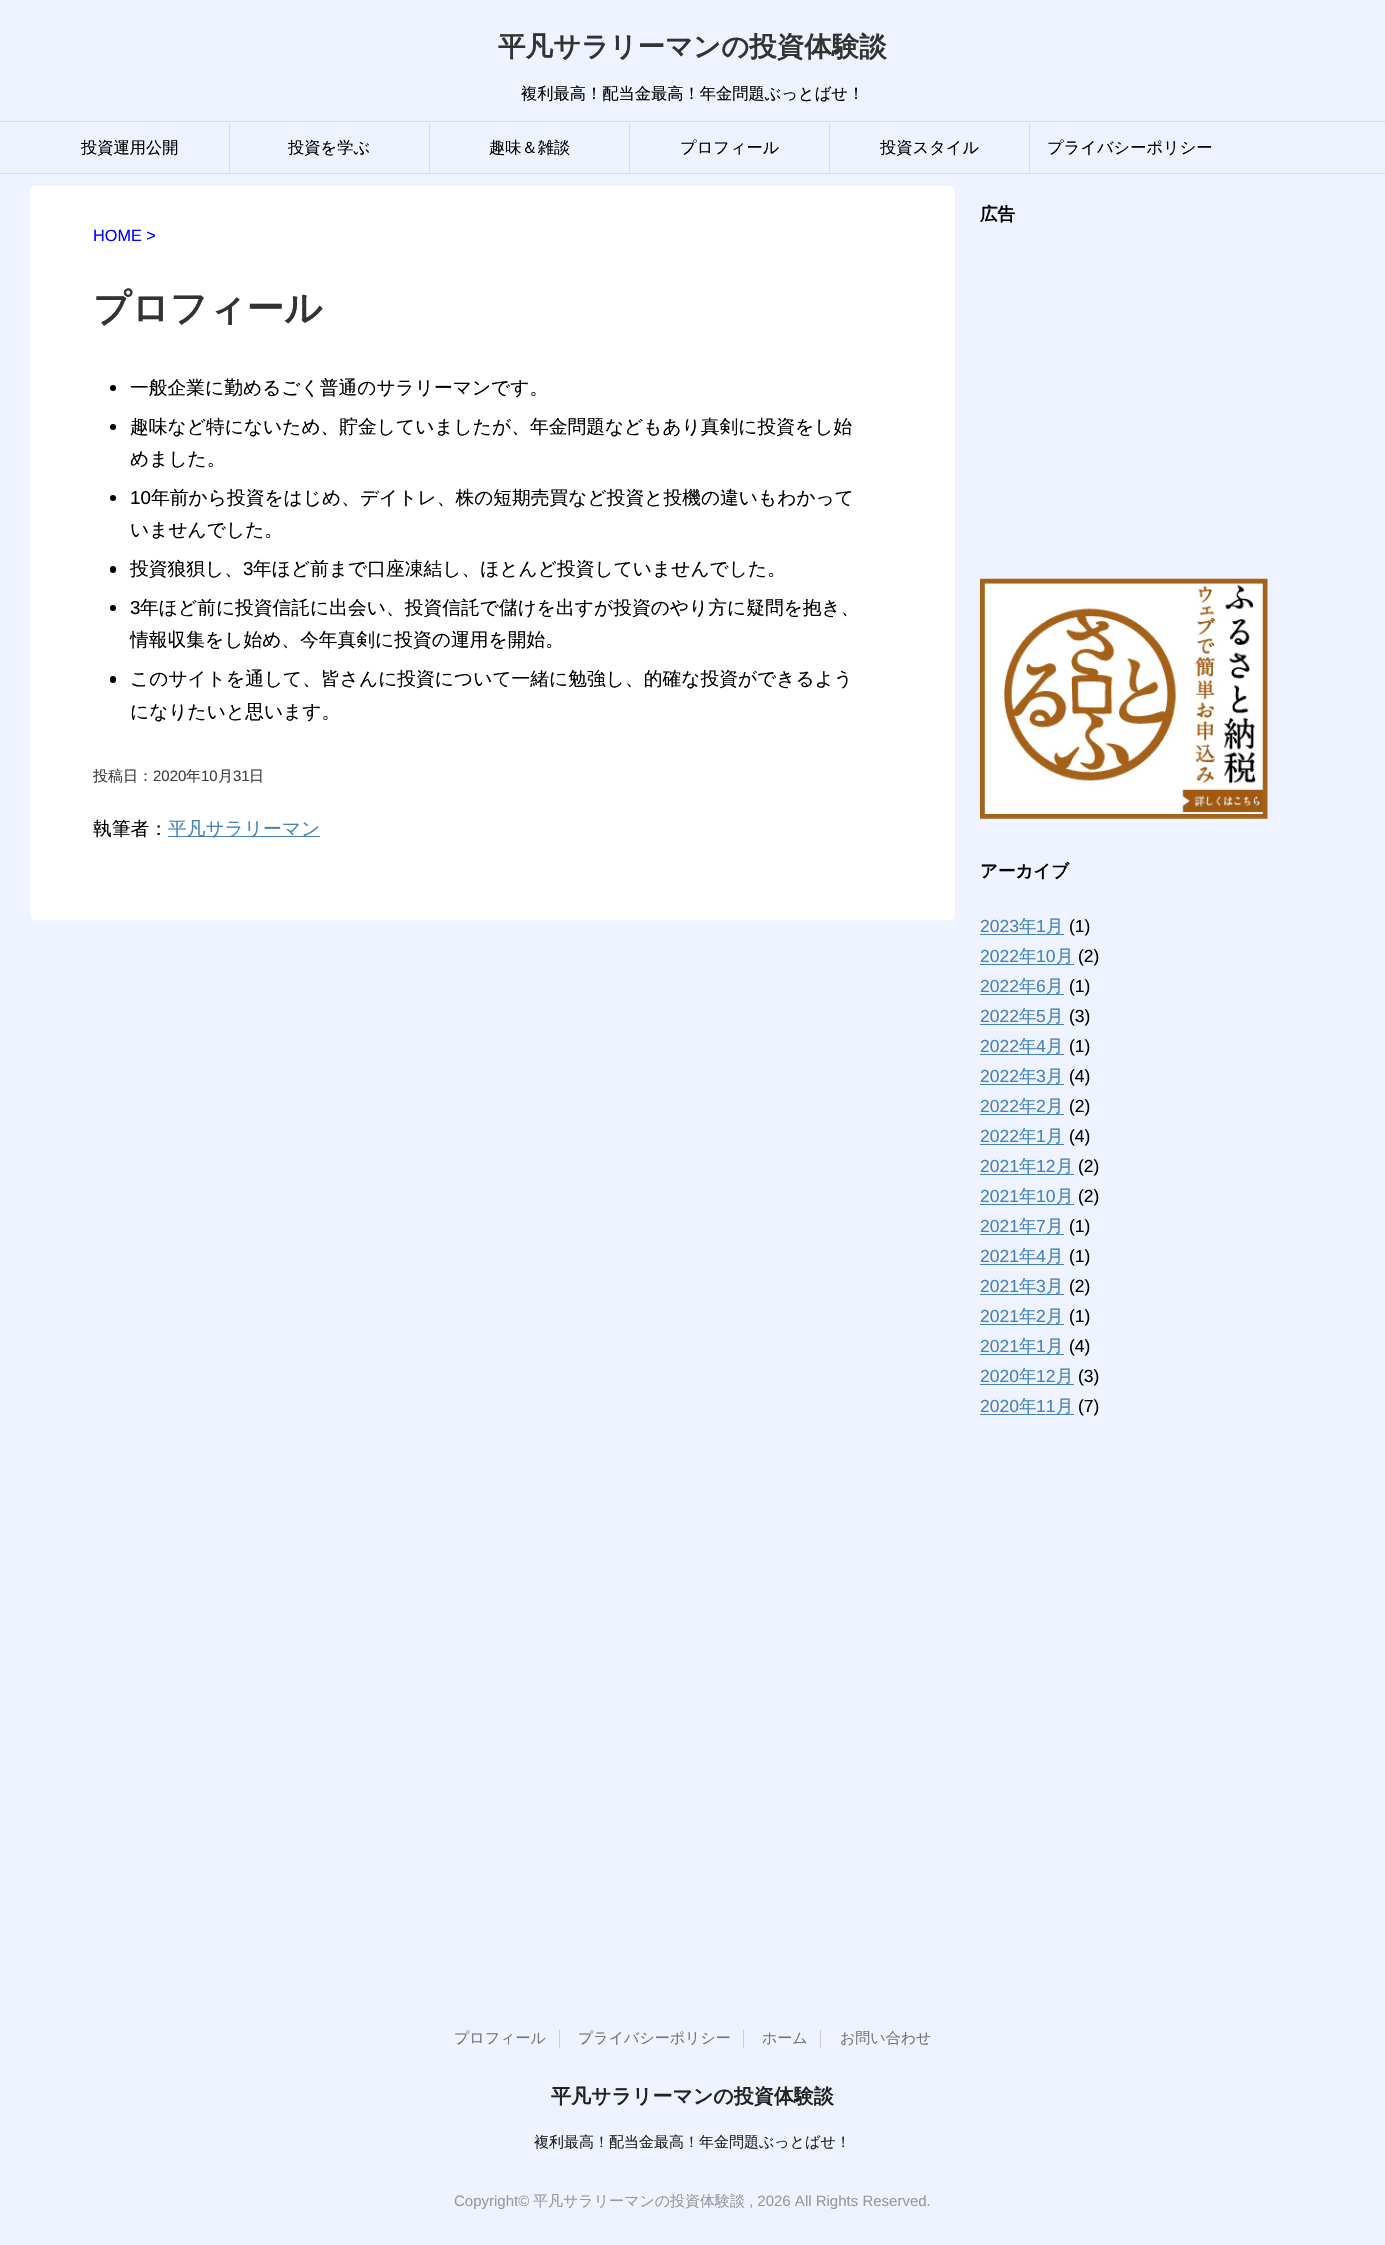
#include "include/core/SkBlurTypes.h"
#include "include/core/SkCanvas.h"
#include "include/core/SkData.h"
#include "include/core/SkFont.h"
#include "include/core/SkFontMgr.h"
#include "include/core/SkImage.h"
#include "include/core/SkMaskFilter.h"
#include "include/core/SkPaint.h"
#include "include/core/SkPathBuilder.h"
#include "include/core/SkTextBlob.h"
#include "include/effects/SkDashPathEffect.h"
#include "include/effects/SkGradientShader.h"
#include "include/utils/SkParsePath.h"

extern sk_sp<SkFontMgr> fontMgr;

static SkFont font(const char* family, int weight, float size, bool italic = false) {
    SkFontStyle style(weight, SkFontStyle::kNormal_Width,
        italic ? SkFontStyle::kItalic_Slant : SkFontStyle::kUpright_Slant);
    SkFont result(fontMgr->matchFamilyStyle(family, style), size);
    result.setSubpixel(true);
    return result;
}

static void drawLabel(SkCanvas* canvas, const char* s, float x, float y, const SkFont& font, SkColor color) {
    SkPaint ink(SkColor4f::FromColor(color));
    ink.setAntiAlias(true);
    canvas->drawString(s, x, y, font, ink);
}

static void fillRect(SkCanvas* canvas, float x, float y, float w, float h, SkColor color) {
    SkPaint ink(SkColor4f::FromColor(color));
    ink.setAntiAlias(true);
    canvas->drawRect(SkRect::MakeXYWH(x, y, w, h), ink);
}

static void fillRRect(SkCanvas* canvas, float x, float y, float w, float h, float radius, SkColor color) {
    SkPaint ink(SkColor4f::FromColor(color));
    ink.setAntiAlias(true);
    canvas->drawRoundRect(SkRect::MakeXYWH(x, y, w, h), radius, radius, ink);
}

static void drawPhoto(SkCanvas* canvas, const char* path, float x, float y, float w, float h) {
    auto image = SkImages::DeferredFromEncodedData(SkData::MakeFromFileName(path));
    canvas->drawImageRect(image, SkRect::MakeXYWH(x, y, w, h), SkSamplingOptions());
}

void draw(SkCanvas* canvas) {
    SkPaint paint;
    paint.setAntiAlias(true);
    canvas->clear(0xFFEFF3FF);
    SkFont font1 = font("WenQuanYi Zen Hei", 700, 27.5f);
    drawLabel(canvas, "平凡サラリーマンの投資体験談", 498, 56, font1, 0xFF333333);
    SkFont font2 = font("WenQuanYi Zen Hei", 500, 16.25f);
    drawLabel(canvas, "複利最高！配当金最高！年金問題ぶっとばせ！", 521, 99, font2, 0xFF000000);
    fillRect(canvas, 0, 121, 1385, 1, 0xFFE0DEDE);
    fillRect(canvas, 0, 173, 1385, 1, 0xFFE0DEDE);
    fillRect(canvas, 229, 123, 1, 50, 0xFFE0DEDE);
    drawLabel(canvas, "投資運用公開", 81, 153, font2, 0xFF000000);
    fillRect(canvas, 429, 123, 1, 50, 0xFFE0DEDE);
    drawLabel(canvas, "投資を学ぶ", 288, 153, font2, 0xFF000000);
    fillRect(canvas, 629, 123, 1, 50, 0xFFE0DEDE);
    drawLabel(canvas, "趣味＆雑談", 489, 153, font2, 0xFF000000);
    fillRect(canvas, 829, 123, 1, 50, 0xFFE0DEDE);
    drawLabel(canvas, "プロフィール", 680, 153, font2, 0xFF000000);
    fillRect(canvas, 1029, 123, 1, 50, 0xFFE0DEDE);
    drawLabel(canvas, "投資スタイル", 880, 153, font2, 0xFF000000);
    drawLabel(canvas, "プライバシーポリシー", 1047, 153, font2, 0xFF000000);
    fillRRect(canvas, 30, 186, 925, 734, 5, 0xFFFFFFFF);
    SkFont font3 = font("Liberation Sans", 400, 16.25f);
    drawLabel(canvas, "HOME >", 93, 241, font3, 0xFF0000FF);
    SkFont font4 = font("WenQuanYi Zen Hei", 700, 37.5f);
    drawLabel(canvas, "プロフィール", 93, 321, font4, 0xFF333333);
    paint.setColor(0xFF000000);
    canvas->drawCircle(113, 388, 3, paint);
    SkFont font5 = font("WenQuanYi Zen Hei", 500, 18.75f);
    drawLabel(canvas, "一般企業に勤めるごく普通のサラリーマンです。", 130, 394, font5, 0xFF000000);
    canvas->drawCircle(113, 427, 3, paint);
    drawLabel(canvas, "趣味など特にないため、貯金していましたが、年金問題などもあり真剣に投資をし始", 130, 433, font5, 0xFF000000);
    drawLabel(canvas, "めました。", 130, 465, font5, 0xFF000000);
    canvas->drawCircle(113, 498, 3, paint);
    SkFont font6 = font("Liberation Sans", 400, 18.75f);
    drawLabel(canvas, "10", 130, 504, font6, 0xFF000000);
    drawLabel(canvas, "年前から投資をはじめ、デイトレ、株の短期売買など投資と投機の違いもわかって", 151, 504, font5, 0xFF000000);
    drawLabel(canvas, "いませんでした。", 130, 536, font5, 0xFF000000);
    fillRRect(canvas, 110, 566, 6, 7, 3, 0xFF000000);
    drawLabel(canvas, "投資狼狽し、", 130, 575, font5, 0xFF000000);
    drawLabel(canvas, "3", 243, 575, font6, 0xFF000000);
    drawLabel(canvas, "年ほど前まで口座凍結し、ほとんど投資していませんでした。", 253, 575, font5, 0xFF000000);
    canvas->drawCircle(113, 608, 3, paint);
    drawLabel(canvas, "3", 130, 614, font6, 0xFF000000);
    drawLabel(canvas, "年ほど前に投資信託に出会い、投資信託で儲けを出すが投資のやり方に疑問を抱き、", 140, 614, font5, 0xFF000000);
    drawLabel(canvas, "情報収集をし始め、今年真剣に投資の運用を開始。", 130, 646, font5, 0xFF000000);
    fillRRect(canvas, 110, 676, 6, 7, 3, 0xFF000000);
    drawLabel(canvas, "このサイトを通して、皆さんに投資について一緒に勉強し、的確な投資ができるよう", 130, 685, font5, 0xFF000000);
    drawLabel(canvas, "になりたいと思います。", 130, 718, font5, 0xFF000000);
    SkFont font7 = font("WenQuanYi Zen Hei", 500, 15);
    drawLabel(canvas, "投稿日：", 93, 781, font7, 0xFF3D3D40);
    SkFont font8 = font("Liberation Sans", 400, 15);
    drawLabel(canvas, "2020", 153, 781, font8, 0xFF3D3D40);
    drawLabel(canvas, "年", 186, 781, font7, 0xFF3D3D40);
    drawLabel(canvas, "10", 201, 781, font8, 0xFF3D3D40);
    drawLabel(canvas, "月", 218, 781, font7, 0xFF3D3D40);
    drawLabel(canvas, "31", 233, 781, font8, 0xFF3D3D40);
    drawLabel(canvas, "日", 249, 781, font7, 0xFF3D3D40);
    drawLabel(canvas, "執筆者：", 93, 835, font5, 0xFF000000);
    fillRect(canvas, 168, 836, 152, 1, 0xFF4682B4);
    drawLabel(canvas, "平凡サラリーマン", 168, 835, font5, 0xFF4682B4);
    SkFont font9 = font("WenQuanYi Zen Hei", 700, 17.5f);
    drawLabel(canvas, "広告", 980, 220, font9, 0xFF000000);
    drawPhoto(canvas, "assets/img1.png", 980, 578, 288, 241);
    drawLabel(canvas, "アーカイブ", 980, 877, font9, 0xFF000000);
    SkFont font10 = font("Liberation Sans", 400, 17.5f);
    drawLabel(canvas, "2023", 980, 932, font10, 0xFF4682B4);
    fillRect(canvas, 980, 934, 84, 1, 0xFF4682B4);
    SkFont font11 = font("WenQuanYi Zen Hei", 500, 17.5f);
    drawLabel(canvas, "年", 1019, 932, font11, 0xFF4682B4);
    drawLabel(canvas, "1", 1036, 932, font10, 0xFF4682B4);
    drawLabel(canvas, "月", 1046, 932, font11, 0xFF4682B4);
    drawLabel(canvas, "(1)", 1069, 932, font10, 0xFF000000);
    drawLabel(canvas, "2022", 980, 962, font10, 0xFF4682B4);
    fillRect(canvas, 980, 964, 94, 1, 0xFF4682B4);
    drawLabel(canvas, "年", 1019, 962, font11, 0xFF4682B4);
    drawLabel(canvas, "10", 1036, 962, font10, 0xFF4682B4);
    drawLabel(canvas, "月", 1056, 962, font11, 0xFF4682B4);
    drawLabel(canvas, "(2)", 1078, 962, font10, 0xFF000000);
    drawLabel(canvas, "2022", 980, 992, font10, 0xFF4682B4);
    fillRect(canvas, 980, 994, 84, 1, 0xFF4682B4);
    drawLabel(canvas, "年", 1019, 992, font11, 0xFF4682B4);
    drawLabel(canvas, "6", 1036, 992, font10, 0xFF4682B4);
    drawLabel(canvas, "月", 1046, 992, font11, 0xFF4682B4);
    drawLabel(canvas, "(1)", 1069, 992, font10, 0xFF000000);
    drawLabel(canvas, "2022", 980, 1022, font10, 0xFF4682B4);
    fillRect(canvas, 980, 1024, 84, 1, 0xFF4682B4);
    drawLabel(canvas, "年", 1019, 1022, font11, 0xFF4682B4);
    drawLabel(canvas, "5", 1036, 1022, font10, 0xFF4682B4);
    drawLabel(canvas, "月", 1046, 1022, font11, 0xFF4682B4);
    drawLabel(canvas, "(3)", 1069, 1022, font10, 0xFF000000);
    drawLabel(canvas, "2022", 980, 1052, font10, 0xFF4682B4);
    fillRect(canvas, 980, 1054, 84, 1, 0xFF4682B4);
    drawLabel(canvas, "年", 1019, 1052, font11, 0xFF4682B4);
    drawLabel(canvas, "4", 1036, 1052, font10, 0xFF4682B4);
    drawLabel(canvas, "月", 1046, 1052, font11, 0xFF4682B4);
    drawLabel(canvas, "(1)", 1069, 1052, font10, 0xFF000000);
    drawLabel(canvas, "2022", 980, 1082, font10, 0xFF4682B4);
    fillRect(canvas, 980, 1084, 84, 1, 0xFF4682B4);
    drawLabel(canvas, "年", 1019, 1082, font11, 0xFF4682B4);
    drawLabel(canvas, "3", 1036, 1082, font10, 0xFF4682B4);
    drawLabel(canvas, "月", 1046, 1082, font11, 0xFF4682B4);
    drawLabel(canvas, "(4)", 1069, 1082, font10, 0xFF000000);
    drawLabel(canvas, "2022", 980, 1112, font10, 0xFF4682B4);
    fillRect(canvas, 980, 1114, 84, 1, 0xFF4682B4);
    drawLabel(canvas, "年", 1019, 1112, font11, 0xFF4682B4);
    drawLabel(canvas, "2", 1036, 1112, font10, 0xFF4682B4);
    drawLabel(canvas, "月", 1046, 1112, font11, 0xFF4682B4);
    drawLabel(canvas, "(2)", 1069, 1112, font10, 0xFF000000);
    drawLabel(canvas, "2022", 980, 1142, font10, 0xFF4682B4);
    fillRect(canvas, 980, 1144, 84, 1, 0xFF4682B4);
    drawLabel(canvas, "年", 1019, 1142, font11, 0xFF4682B4);
    drawLabel(canvas, "1", 1036, 1142, font10, 0xFF4682B4);
    drawLabel(canvas, "月", 1046, 1142, font11, 0xFF4682B4);
    drawLabel(canvas, "(4)", 1069, 1142, font10, 0xFF000000);
    drawLabel(canvas, "2021", 980, 1172, font10, 0xFF4682B4);
    fillRect(canvas, 980, 1174, 94, 1, 0xFF4682B4);
    drawLabel(canvas, "年", 1019, 1172, font11, 0xFF4682B4);
    drawLabel(canvas, "12", 1036, 1172, font10, 0xFF4682B4);
    drawLabel(canvas, "月", 1056, 1172, font11, 0xFF4682B4);
    drawLabel(canvas, "(2)", 1078, 1172, font10, 0xFF000000);
    drawLabel(canvas, "2021", 980, 1202, font10, 0xFF4682B4);
    fillRect(canvas, 980, 1204, 94, 1, 0xFF4682B4);
    drawLabel(canvas, "年", 1019, 1202, font11, 0xFF4682B4);
    drawLabel(canvas, "10", 1036, 1202, font10, 0xFF4682B4);
    drawLabel(canvas, "月", 1056, 1202, font11, 0xFF4682B4);
    drawLabel(canvas, "(2)", 1078, 1202, font10, 0xFF000000);
    drawLabel(canvas, "2021", 980, 1232, font10, 0xFF4682B4);
    fillRect(canvas, 980, 1234, 84, 1, 0xFF4682B4);
    drawLabel(canvas, "年", 1019, 1232, font11, 0xFF4682B4);
    drawLabel(canvas, "7", 1036, 1232, font10, 0xFF4682B4);
    drawLabel(canvas, "月", 1046, 1232, font11, 0xFF4682B4);
    drawLabel(canvas, "(1)", 1069, 1232, font10, 0xFF000000);
    drawLabel(canvas, "2021", 980, 1262, font10, 0xFF4682B4);
    fillRect(canvas, 980, 1264, 84, 1, 0xFF4682B4);
    drawLabel(canvas, "年", 1019, 1262, font11, 0xFF4682B4);
    drawLabel(canvas, "4", 1036, 1262, font10, 0xFF4682B4);
    drawLabel(canvas, "月", 1046, 1262, font11, 0xFF4682B4);
    drawLabel(canvas, "(1)", 1069, 1262, font10, 0xFF000000);
    drawLabel(canvas, "2021", 980, 1292, font10, 0xFF4682B4);
    fillRect(canvas, 980, 1294, 84, 1, 0xFF4682B4);
    drawLabel(canvas, "年", 1019, 1292, font11, 0xFF4682B4);
    drawLabel(canvas, "3", 1036, 1292, font10, 0xFF4682B4);
    drawLabel(canvas, "月", 1046, 1292, font11, 0xFF4682B4);
    drawLabel(canvas, "(2)", 1069, 1292, font10, 0xFF000000);
    drawLabel(canvas, "2021", 980, 1322, font10, 0xFF4682B4);
    fillRect(canvas, 980, 1324, 84, 1, 0xFF4682B4);
    drawLabel(canvas, "年", 1019, 1322, font11, 0xFF4682B4);
    drawLabel(canvas, "2", 1036, 1322, font10, 0xFF4682B4);
    drawLabel(canvas, "月", 1046, 1322, font11, 0xFF4682B4);
    drawLabel(canvas, "(1)", 1069, 1322, font10, 0xFF000000);
    drawLabel(canvas, "2021", 980, 1352, font10, 0xFF4682B4);
    fillRect(canvas, 980, 1354, 84, 1, 0xFF4682B4);
    drawLabel(canvas, "年", 1019, 1352, font11, 0xFF4682B4);
    drawLabel(canvas, "1", 1036, 1352, font10, 0xFF4682B4);
    drawLabel(canvas, "月", 1046, 1352, font11, 0xFF4682B4);
    drawLabel(canvas, "(4)", 1069, 1352, font10, 0xFF000000);
    drawLabel(canvas, "2020", 980, 1382, font10, 0xFF4682B4);
    fillRect(canvas, 980, 1384, 94, 1, 0xFF4682B4);
    drawLabel(canvas, "年", 1019, 1382, font11, 0xFF4682B4);
    drawLabel(canvas, "12", 1036, 1382, font10, 0xFF4682B4);
    drawLabel(canvas, "月", 1056, 1382, font11, 0xFF4682B4);
    drawLabel(canvas, "(3)", 1078, 1382, font10, 0xFF000000);
    drawLabel(canvas, "2020", 980, 1412, font10, 0xFF4682B4);
    fillRect(canvas, 980, 1414, 94, 1, 0xFF4682B4);
    drawLabel(canvas, "年", 1019, 1412, font11, 0xFF4682B4);
    drawLabel(canvas, "11", 1036, 1412, font10, 0xFF4682B4);
    drawLabel(canvas, "月", 1056, 1412, font11, 0xFF4682B4);
    drawLabel(canvas, "(7)", 1078, 1412, font10, 0xFF000000);
    drawLabel(canvas, "プロフィール", 454, 2043, font7, 0xFF757575);
    fillRect(canvas, 559, 2030, 1, 18, 0xFFCCCCCC);
    drawLabel(canvas, "プライバシーポリシー", 578, 2043, font7, 0xFF757575);
    fillRect(canvas, 743, 2030, 1, 18, 0xFFCCCCCC);
    drawLabel(canvas, "ホーム", 762, 2043, font7, 0xFF757575);
    fillRect(canvas, 820, 2030, 1, 18, 0xFFCCCCCC);
    drawLabel(canvas, "お問い合わせ", 840, 2043, font7, 0xFF757575);
    SkFont font12 = font("WenQuanYi Zen Hei", 700, 20);
    drawLabel(canvas, "平凡サラリーマンの投資体験談", 551, 2103, font12, 0xFF212121);
    drawLabel(canvas, "複利最高！配当金最高！年金問題ぶっとばせ！", 534, 2147, font7, 0xFF212121);
    drawLabel(canvas, "Copyright©", 454, 2206, font8, 0xFF999999);
    drawLabel(canvas, "平凡サラリーマンの投資体験談", 533, 2206, font7, 0xFF999999);
    drawLabel(canvas, ", 2026 All Rights Reserved.", 749, 2206, font8, 0xFF999999);
}
